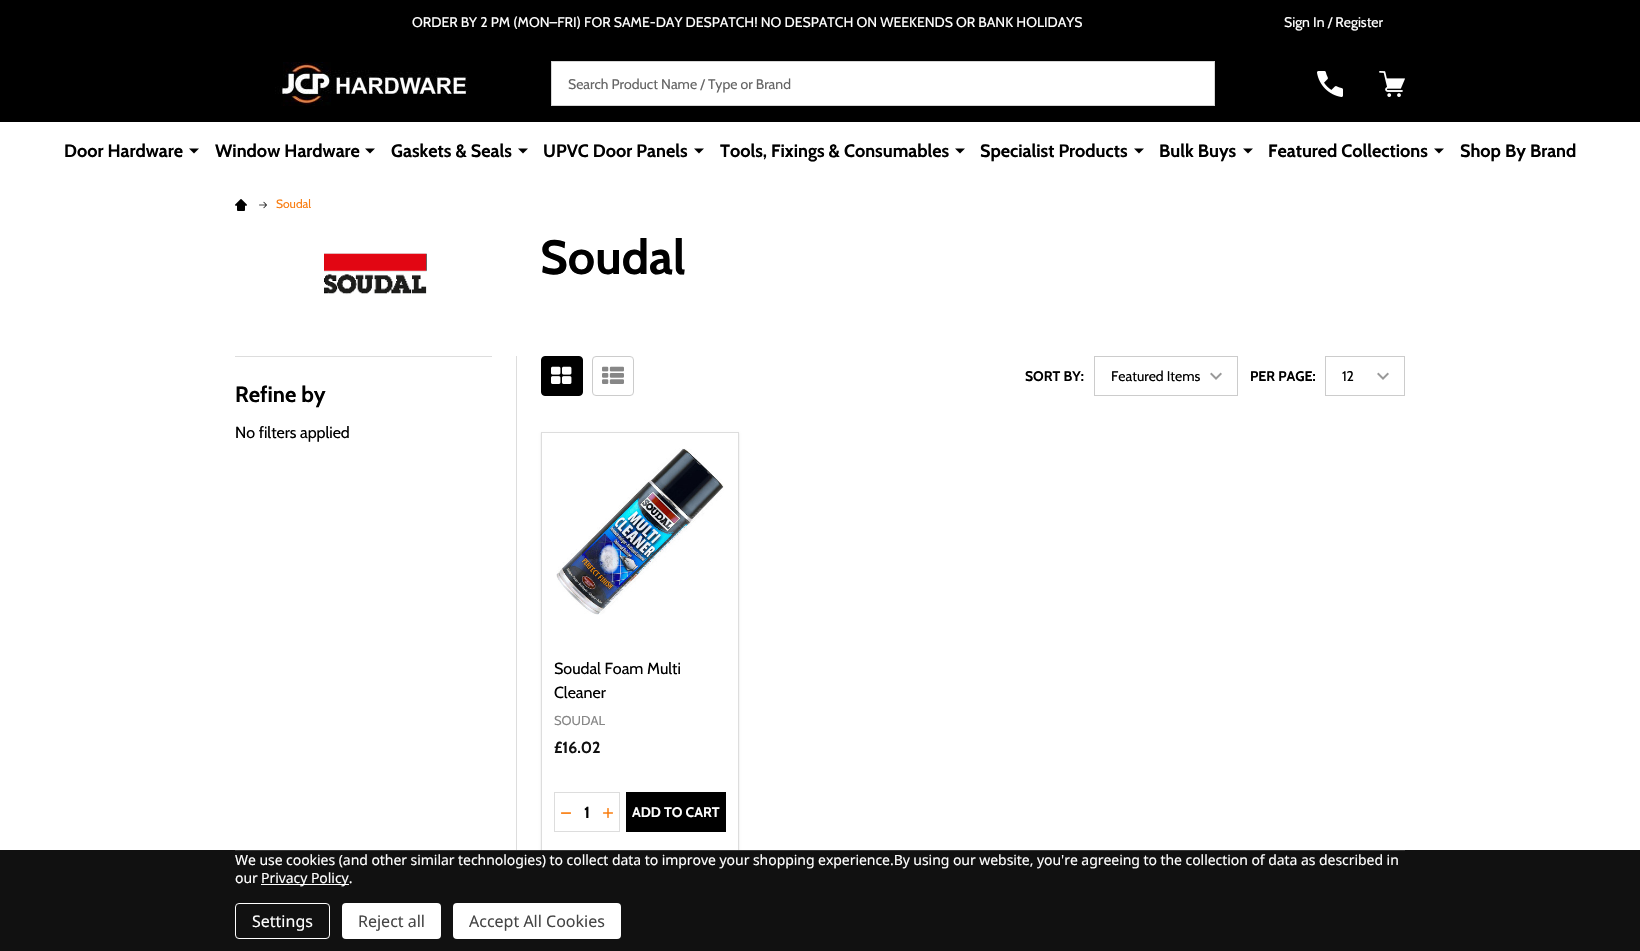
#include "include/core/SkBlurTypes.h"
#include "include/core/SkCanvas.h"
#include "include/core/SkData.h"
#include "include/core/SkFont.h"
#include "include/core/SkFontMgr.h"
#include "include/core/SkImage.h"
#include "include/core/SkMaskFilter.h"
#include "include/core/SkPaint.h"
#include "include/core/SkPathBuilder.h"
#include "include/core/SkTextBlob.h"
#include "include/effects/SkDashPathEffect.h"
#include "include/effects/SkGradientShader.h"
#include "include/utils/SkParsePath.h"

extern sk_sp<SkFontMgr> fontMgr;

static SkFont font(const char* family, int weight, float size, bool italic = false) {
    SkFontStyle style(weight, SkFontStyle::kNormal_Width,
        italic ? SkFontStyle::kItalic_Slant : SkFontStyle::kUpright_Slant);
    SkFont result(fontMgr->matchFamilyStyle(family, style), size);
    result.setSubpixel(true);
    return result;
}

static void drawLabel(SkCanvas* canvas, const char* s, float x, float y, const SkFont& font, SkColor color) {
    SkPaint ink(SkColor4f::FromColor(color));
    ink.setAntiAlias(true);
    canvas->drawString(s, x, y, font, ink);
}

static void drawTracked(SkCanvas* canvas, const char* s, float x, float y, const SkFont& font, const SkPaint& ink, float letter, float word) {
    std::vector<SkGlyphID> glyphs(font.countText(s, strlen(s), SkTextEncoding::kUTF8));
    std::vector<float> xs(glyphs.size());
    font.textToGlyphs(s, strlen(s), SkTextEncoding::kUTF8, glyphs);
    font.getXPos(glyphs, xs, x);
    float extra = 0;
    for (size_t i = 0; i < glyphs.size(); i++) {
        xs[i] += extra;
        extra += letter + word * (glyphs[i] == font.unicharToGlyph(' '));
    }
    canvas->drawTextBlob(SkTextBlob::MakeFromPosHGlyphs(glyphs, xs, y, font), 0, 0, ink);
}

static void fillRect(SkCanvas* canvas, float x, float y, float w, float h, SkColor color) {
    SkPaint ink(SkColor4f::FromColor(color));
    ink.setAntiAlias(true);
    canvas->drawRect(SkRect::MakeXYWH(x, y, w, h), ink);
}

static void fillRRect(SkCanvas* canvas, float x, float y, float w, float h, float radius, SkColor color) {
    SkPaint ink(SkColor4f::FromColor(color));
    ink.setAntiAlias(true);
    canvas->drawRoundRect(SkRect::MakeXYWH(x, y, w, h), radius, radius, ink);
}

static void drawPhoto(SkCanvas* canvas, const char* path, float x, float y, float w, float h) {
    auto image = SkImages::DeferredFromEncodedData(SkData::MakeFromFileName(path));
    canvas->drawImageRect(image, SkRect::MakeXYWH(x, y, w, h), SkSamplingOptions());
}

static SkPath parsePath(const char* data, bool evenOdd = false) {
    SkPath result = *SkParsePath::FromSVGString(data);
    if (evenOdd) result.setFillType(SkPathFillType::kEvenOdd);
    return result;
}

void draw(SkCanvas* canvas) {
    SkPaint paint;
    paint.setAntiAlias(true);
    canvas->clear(0xFFFFFFFF);
    fillRect(canvas, 0, 0, 1640, 122, 0xFF000000);
    SkFont font1 = font("Cabin", 400, 14);
    drawLabel(canvas, "ORDER BY 2 PM (MON–FRI) FOR SAME-DAY DESPATCH! NO DESPATCH ON WEEKENDS OR BANK HOLIDAYS", 412, 27, font1, 0xFFFFFFFF);
    drawLabel(canvas, "Sign In / Register", 1284, 27, font1, 0xFFFFFFFF);
    drawPhoto(canvas, "assets/img1.png", 275, 62, 192, 44);
    paint.setColor(0xFFFFFFFF);
    canvas->drawRect(SkRect::MakeXYWH(551.5f, 61.5f, 663, 44), paint);
    paint.setStroke(true);
    paint.setStrokeWidth(1);
    paint.setColor(0xFFD6D6D6);
    canvas->drawRect(SkRect::MakeXYWH(551.5f, 61.5f, 663, 44), paint);
    drawLabel(canvas, "Search Product Name / Type or Brand", 568, 89, font1, 0xFF666666);
    drawPhoto(canvas, "assets/img2.png", 1317, 71, 26, 26);
    drawPhoto(canvas, "assets/img3.png", 1379, 71, 26, 26);
    SkFont font2 = font("Cabin", 700, 18);
    drawLabel(canvas, "Door Hardware", 64, 157, font2, 0xFF000000);
    paint.setStroke(false);
    paint.setColor(0xFF000000);
    canvas->drawPath(parsePath("M189 148.5L194 153.5L199 148.5Z"), paint);
    drawLabel(canvas, "Window Hardware", 215, 157, font2, 0xFF000000);
    canvas->drawPath(parsePath("M365 148.5L370 153.5L375 148.5Z"), paint);
    drawLabel(canvas, "Gaskets & Seals", 391, 157, font2, 0xFF000000);
    canvas->drawPath(parsePath("M518 148.5L523 153.5L528 148.5Z"), paint);
    drawLabel(canvas, "UPVC Door Panels", 543, 157, font2, 0xFF000000);
    canvas->drawPath(parsePath("M694 148.5L699 153.5L704 148.5Z"), paint);
    drawLabel(canvas, "Tools, Fixings & Consumables", 720, 157, font2, 0xFF000000);
    canvas->drawPath(parsePath("M955 148.5L960 153.5L965 148.5Z"), paint);
    drawLabel(canvas, "Specialist Products", 980, 157, font2, 0xFF000000);
    canvas->drawPath(parsePath("M1134 148.5L1139 153.5L1144 148.5Z"), paint);
    drawLabel(canvas, "Bulk Buys", 1159, 157, font2, 0xFF000000);
    canvas->drawPath(parsePath("M1243 148.5L1248 153.5L1253 148.5Z"), paint);
    drawLabel(canvas, "Featured Collections", 1268, 157, font2, 0xFF000000);
    canvas->drawPath(parsePath("M1434 148.5L1439 153.5L1444 148.5Z"), paint);
    drawLabel(canvas, "Shop By Brand", 1460, 157, font2, 0xFF000000);
    drawPhoto(canvas, "assets/img4.png", 235, 199, 12, 12);
    drawPhoto(canvas, "assets/img5.png", 259, 201, 8, 8);
    SkFont font3 = font("Cabin", 400, 12);
    drawLabel(canvas, "Soudal", 276, 208, font3, 0xFFF97E12);
    drawPhoto(canvas, "assets/img6.png", 324, 253, 103, 42);
    SkFont font4 = font("Cabin", 700, 48);
    drawLabel(canvas, "Soudal", 540, 274, font4, 0xFF000000);
    fillRect(canvas, 235, 356, 257, 1, 0xFFDDDDDD);
    SkFont font5 = font("Cabin", 700, 22);
    drawLabel(canvas, "Refine by", 235, 402, font5, 0xFF000000);
    SkFont font6 = font("Cabin", 400, 16);
    drawLabel(canvas, "No filters applied", 235, 438, font6, 0xFF000000);
    fillRect(canvas, 516, 356, 1, 494, 0xFFDDDDDD);
    canvas->drawRoundRect(SkRect::MakeXYWH(541.5f, 356.5f, 41, 39), 3.5f, 3.5f, paint);
    paint.setStroke(true);
    canvas->drawRoundRect(SkRect::MakeXYWH(541.5f, 356.5f, 41, 39), 3.5f, 3.5f, paint);
    drawPhoto(canvas, "assets/img7.png", 551, 366, 21, 18);
    paint.setColor(0xFFCCCCCC);
    canvas->drawRoundRect(SkRect::MakeXYWH(592.5f, 356.5f, 41, 39), 3.5f, 3.5f, paint);
    drawPhoto(canvas, "assets/img8.png", 602, 366, 22, 18);
    SkFont font7 = font("Cabin", 700, 14);
    drawLabel(canvas, "SORT BY:", 1025, 381, font7, 0xFF000000);
    drawPhoto(canvas, "assets/img9.png", 1210, 372, 12, 8);
    canvas->drawRect(SkRect::MakeXYWH(1094.5f, 356.5f, 143, 39), paint);
    drawLabel(canvas, "Featured Items", 1111, 381, font1, 0xFF000000);
    drawLabel(canvas, "PER PAGE:", 1250, 381, font7, 0xFF000000);
    drawPhoto(canvas, "assets/img9.png", 1377, 372, 12, 8);
    canvas->drawRect(SkRect::MakeXYWH(1325.5f, 356.5f, 79, 39), paint);
    drawLabel(canvas, "12", 1342, 381, font1, 0xFF000000);
    canvas->save();
    canvas->clipPath(parsePath("M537 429H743V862H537ZM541 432H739V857H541Z", true), true);
    paint.setStroke(false);
    paint.setColor(0x1A000000);
    paint.setMaskFilter(SkMaskFilter::MakeBlur(kNormal_SkBlurStyle, 1));
    canvas->drawRect(SkRect::MakeXYWH(541, 433, 198, 425), paint);
    paint.setMaskFilter(nullptr);
    canvas->restore();
    paint.setStroke(true);
    paint.setColor(0xFFDDDDDD);
    canvas->drawRect(SkRect::MakeXYWH(541.5f, 432.5f, 197, 424), paint);
    drawPhoto(canvas, "assets/img10.png", 556, 448, 168, 167);
    drawLabel(canvas, "Soudal Foam Multi", 554, 674, font6, 0xFF000000);
    drawLabel(canvas, "Cleaner", 554, 698, font6, 0xFF000000);
    SkFont font8 = font("Cabin", 400, 13);
    drawLabel(canvas, "SOUDAL", 554, 725, font8, 0xFF878787);
    SkFont font9 = font("Cabin", 700, 16);
    drawLabel(canvas, "£16.02", 554, 753, font9, 0xFF111111);
    canvas->drawRect(SkRect::MakeXYWH(554.5f, 792.5f, 65, 39), paint);
    drawPhoto(canvas, "assets/img11.png", 561, 812, 10, 2);
    drawLabel(canvas, "1", 584, 818, font9, 0xFF000000);
    drawPhoto(canvas, "assets/img12.png", 603, 808, 10, 10);
    fillRect(canvas, 626, 792, 100, 40, 0xFF000000);
    drawLabel(canvas, "ADD TO CART", 632, 817, font7, 0xFFFFFFFF);
    fillRect(canvas, 0, 850, 1640, 101, 0xFF111111);
    fillRect(canvas, 235, 850, 1170, 1, 0xFF353535);
    SkFont font10 = font("Noto Sans", 400, 14);
    paint.setStroke(false);
    paint.setColor(0xFFFFFFFF);
    drawTracked(canvas, "We use cookies (and other similar technologies) to collect data to improve your shopping experience.By using our website, you're agreeing to the collection of data as described in", 235, 865, font10, paint, -0.05f, 0);
    drawTracked(canvas, "our", 235, 883, font10, paint, -0.05f, 0);
    fillRect(canvas, 261, 884, 88, 1, 0xFFFFFFFF);
    drawTracked(canvas, "Privacy Policy.", 261, 883, font10, paint, -0.05f, 0);
    paint.setStroke(true);
    canvas->drawRoundRect(SkRect::MakeXYWH(235.5f, 903.5f, 94, 35), 3.5f, 3.5f, paint);
    SkFont font11 = font("Noto Sans", 400, 16);
    drawLabel(canvas, "Settings", 252, 927, font11, 0xFFFFFFFF);
    fillRRect(canvas, 342, 903, 99, 36, 4, 0xFFFFFFFF);
    drawLabel(canvas, "Reject all", 358, 927, font11, 0xFF454545);
    fillRRect(canvas, 453, 903, 168, 36, 4, 0xFFFFFFFF);
    drawLabel(canvas, "Accept All Cookies", 469, 927, font11, 0xFF454545);
}
